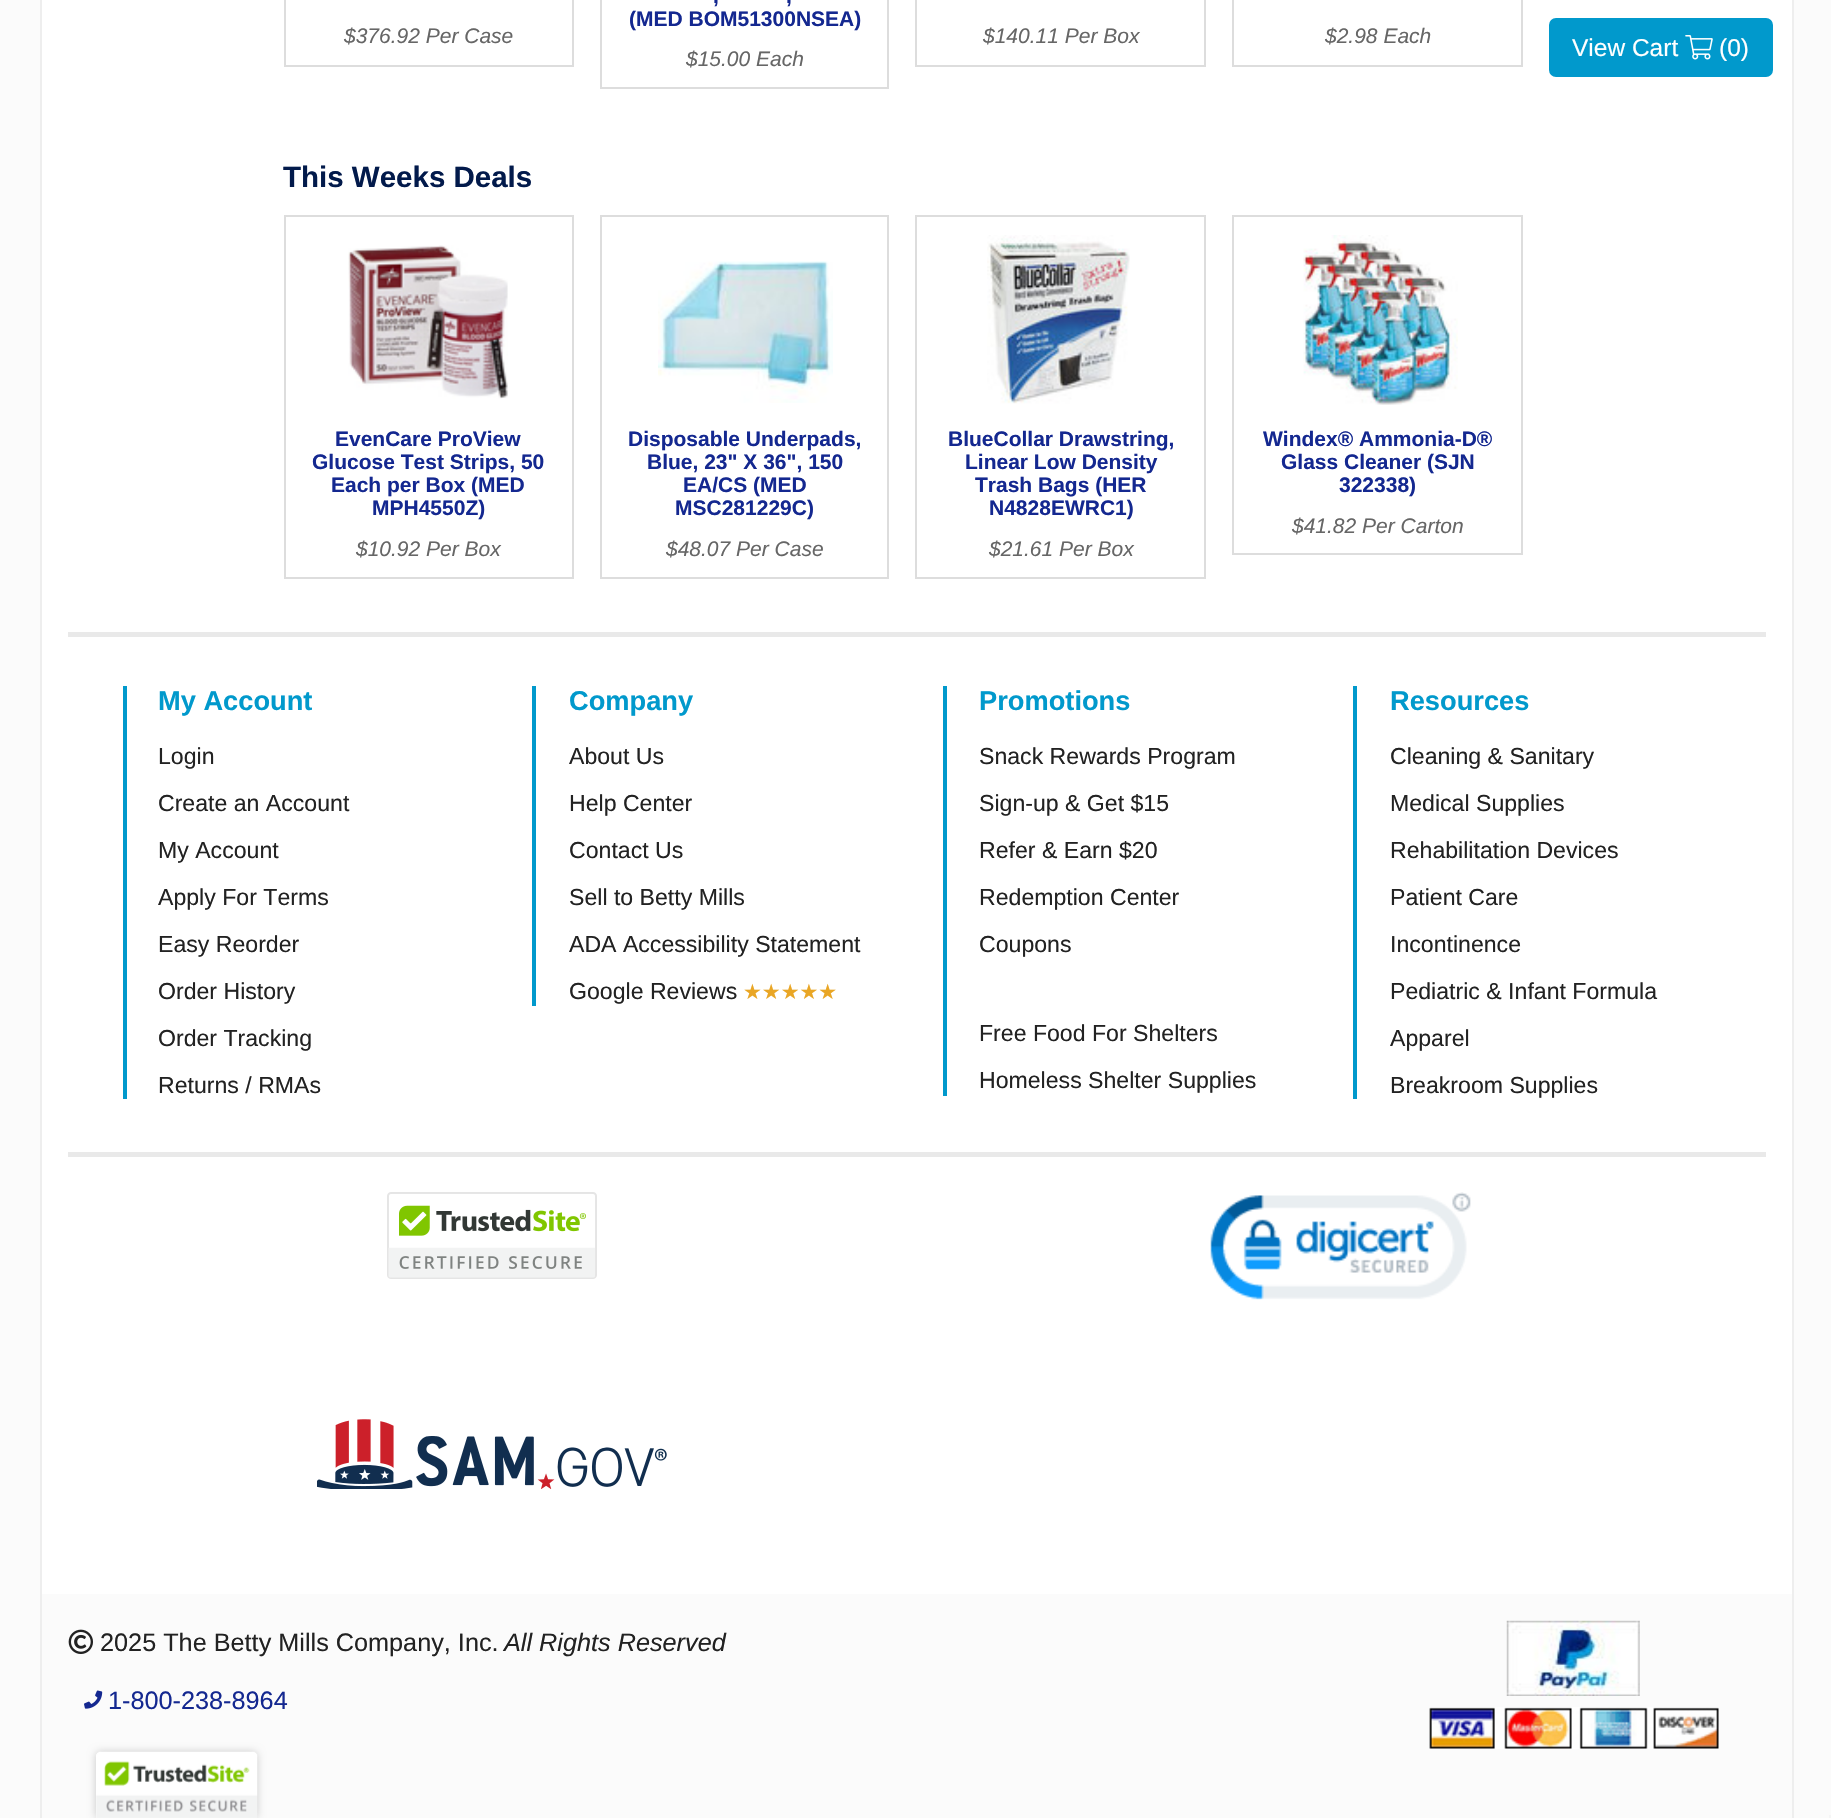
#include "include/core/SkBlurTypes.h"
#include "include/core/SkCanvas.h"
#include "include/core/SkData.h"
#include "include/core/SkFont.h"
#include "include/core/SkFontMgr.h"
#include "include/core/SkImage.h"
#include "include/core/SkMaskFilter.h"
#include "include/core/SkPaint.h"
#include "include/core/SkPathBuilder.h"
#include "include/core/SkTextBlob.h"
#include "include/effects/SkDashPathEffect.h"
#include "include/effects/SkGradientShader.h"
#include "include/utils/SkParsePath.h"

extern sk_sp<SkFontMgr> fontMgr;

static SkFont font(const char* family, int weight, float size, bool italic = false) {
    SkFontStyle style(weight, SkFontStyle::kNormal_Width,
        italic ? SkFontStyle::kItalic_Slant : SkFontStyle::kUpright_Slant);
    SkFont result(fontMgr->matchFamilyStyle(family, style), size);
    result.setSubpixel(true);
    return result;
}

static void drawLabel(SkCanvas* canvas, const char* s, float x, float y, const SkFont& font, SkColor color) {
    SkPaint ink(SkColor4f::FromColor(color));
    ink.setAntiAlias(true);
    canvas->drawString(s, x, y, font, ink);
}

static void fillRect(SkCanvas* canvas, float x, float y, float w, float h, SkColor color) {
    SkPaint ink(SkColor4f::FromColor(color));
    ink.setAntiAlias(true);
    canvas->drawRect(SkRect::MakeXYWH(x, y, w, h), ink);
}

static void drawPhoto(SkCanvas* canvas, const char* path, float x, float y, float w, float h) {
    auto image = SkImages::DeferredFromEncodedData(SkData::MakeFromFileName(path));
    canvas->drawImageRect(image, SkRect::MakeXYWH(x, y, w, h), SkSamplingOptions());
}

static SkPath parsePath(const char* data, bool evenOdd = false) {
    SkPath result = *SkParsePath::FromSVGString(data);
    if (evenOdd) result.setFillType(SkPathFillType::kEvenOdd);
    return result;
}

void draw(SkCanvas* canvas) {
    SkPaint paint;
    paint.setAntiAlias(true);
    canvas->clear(0xFFFBFBFB);
    fillRect(canvas, 42, 0, 1750, 1594, 0xFFFFFFFF);
    fillRect(canvas, 1792, 0, 2, 1818, 0xFFEEEEEE);
    fillRect(canvas, 40, 0, 2, 1818, 0xFFEEEEEE);
    paint.setStroke(true);
    paint.setStrokeWidth(2);
    paint.setColor(0xFFDDDDDD);
    canvas->drawRect(SkRect::MakeXYWH(285, -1, 288, 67), paint);
    SkFont font1 = font("Liberation Sans", 400, 21, true);
    drawLabel(canvas, "$376.92 Per Case", 344, 43, font1, 0xFF666666);
    canvas->drawRect(SkRect::MakeXYWH(601, -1, 287, 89), paint);
    SkFont font2 = font("Liberation Sans", 700, 21);
    drawLabel(canvas, ",", 713, 3, font2, 0xFF142890);
    drawLabel(canvas, ",", 786, 3, font2, 0xFF142890);
    drawLabel(canvas, "(MED BOM51300NSEA)", 629, 26, font2, 0xFF142890);
    drawLabel(canvas, "$15.00 Each", 686, 66, font1, 0xFF666666);
    canvas->drawRect(SkRect::MakeXYWH(916, -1, 289, 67), paint);
    drawLabel(canvas, "$140.11 Per Box", 983, 43, font1, 0xFF666666);
    canvas->drawRect(SkRect::MakeXYWH(1233, -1, 289, 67), paint);
    drawLabel(canvas, "$2.98 Each", 1325, 43, font1, 0xFF666666);
    SkFont font3 = font("Liberation Sans", 700, 29.5f);
    drawLabel(canvas, "This Weeks Deals", 283, 187, font3, 0xFF021A4B);
    canvas->drawRect(SkRect::MakeXYWH(285, 216, 288, 362), paint);
    drawPhoto(canvas, "assets/img1.png", 348, 245, 160, 154);
    drawLabel(canvas, "EvenCare ProView", 335, 446, font2, 0xFF142890);
    drawLabel(canvas, "Glucose Test Strips, 50", 312, 469, font2, 0xFF142890);
    drawLabel(canvas, "Each per Box (MED", 331, 492, font2, 0xFF142890);
    drawLabel(canvas, "MPH4550Z)", 372, 515, font2, 0xFF142890);
    drawLabel(canvas, "$10.92 Per Box", 356, 556, font1, 0xFF666666);
    canvas->drawRect(SkRect::MakeXYWH(601, 216, 287, 362), paint);
    drawPhoto(canvas, "assets/img2.png", 658, 261, 175, 142);
    drawLabel(canvas, "Disposable Underpads,", 628, 446, font2, 0xFF142890);
    drawLabel(canvas, "Blue, 23\" X 36\", 150", 647, 469, font2, 0xFF142890);
    drawLabel(canvas, "EA/CS (MED", 683, 492, font2, 0xFF142890);
    drawLabel(canvas, "MSC281229C)", 675, 515, font2, 0xFF142890);
    drawLabel(canvas, "$48.07 Per Case", 666, 556, font1, 0xFF666666);
    canvas->drawRect(SkRect::MakeXYWH(916, 216, 289, 362), paint);
    drawPhoto(canvas, "assets/img3.png", 987, 235, 143, 169);
    drawLabel(canvas, "BlueCollar Drawstring,", 948, 446, font2, 0xFF142890);
    drawLabel(canvas, "Linear Low Density", 965, 469, font2, 0xFF142890);
    drawLabel(canvas, "Trash Bags (HER", 975, 492, font2, 0xFF142890);
    drawLabel(canvas, "N4828EWRC1)", 989, 515, font2, 0xFF142890);
    drawLabel(canvas, "$21.61 Per Box", 989, 556, font1, 0xFF666666);
    canvas->drawRect(SkRect::MakeXYWH(1233, 216, 289, 338), paint);
    drawPhoto(canvas, "assets/img4.png", 1303, 235, 155, 170);
    drawLabel(canvas, "Windex® Ammonia-D®", 1263, 446, font2, 0xFF142890);
    drawLabel(canvas, "Glass Cleaner (SJN", 1281, 469, font2, 0xFF142890);
    drawLabel(canvas, "322338)", 1339, 492, font2, 0xFF142890);
    drawLabel(canvas, "$41.82 Per Carton", 1292, 533, font1, 0xFF666666);
    fillRect(canvas, 68, 632, 1698, 5, 0xFFE9E9E9);
    fillRect(canvas, 68, 1152, 1698, 5, 0xFFE9E9E9);
    fillRect(canvas, 123, 686, 4, 413, 0xFF0199CC);
    SkFont font4 = font("Liberation Sans", 700, 27.25f);
    drawLabel(canvas, "My Account", 158, 710, font4, 0xFF0199CC);
    SkFont font5 = font("Liberation Sans", 400, 23.1f);
    drawLabel(canvas, "Login", 158, 764, font5, 0xFF222222);
    drawLabel(canvas, "Create an Account", 158, 811, font5, 0xFF222222);
    drawLabel(canvas, "My Account", 158, 858, font5, 0xFF222222);
    drawLabel(canvas, "Apply For Terms", 158, 905, font5, 0xFF222222);
    drawLabel(canvas, "Easy Reorder", 158, 952, font5, 0xFF222222);
    drawLabel(canvas, "Order History", 158, 999, font5, 0xFF222222);
    drawLabel(canvas, "Order Tracking", 158, 1046, font5, 0xFF222222);
    drawLabel(canvas, "Returns / RMAs", 158, 1093, font5, 0xFF222222);
    fillRect(canvas, 532, 686, 4, 320, 0xFF0199CC);
    drawLabel(canvas, "Company", 569, 710, font4, 0xFF0199CC);
    drawLabel(canvas, "About Us", 569, 764, font5, 0xFF222222);
    drawLabel(canvas, "Help Center", 569, 811, font5, 0xFF222222);
    drawLabel(canvas, "Contact Us", 569, 858, font5, 0xFF222222);
    drawLabel(canvas, "Sell to Betty Mills", 569, 905, font5, 0xFF222222);
    drawLabel(canvas, "ADA Accessibility Statement", 569, 952, font5, 0xFF222222);
    drawLabel(canvas, "Google Reviews", 569, 999, font5, 0xFF222222);
    SkFont font6 = font("DejaVu Sans", 400, 21);
    drawLabel(canvas, "★★★★★", 743, 999, font6, 0xFFE9A625);
    fillRect(canvas, 943, 686, 4, 410, 0xFF0199CC);
    drawLabel(canvas, "Promotions", 979, 710, font4, 0xFF0199CC);
    drawLabel(canvas, "Snack Rewards Program", 979, 764, font5, 0xFF222222);
    drawLabel(canvas, "Sign-up & Get $15", 979, 811, font5, 0xFF222222);
    drawLabel(canvas, "Refer & Earn $20", 979, 858, font5, 0xFF222222);
    drawLabel(canvas, "Redemption Center", 979, 905, font5, 0xFF222222);
    drawLabel(canvas, "Coupons", 979, 952, font5, 0xFF222222);
    drawLabel(canvas, "Free Food For Shelters", 979, 1041, font5, 0xFF222222);
    drawLabel(canvas, "Homeless Shelter Supplies", 979, 1088, font5, 0xFF222222);
    fillRect(canvas, 1353, 686, 4, 413, 0xFF0199CC);
    drawLabel(canvas, "Resources", 1390, 710, font4, 0xFF0199CC);
    drawLabel(canvas, "Cleaning & Sanitary", 1390, 764, font5, 0xFF222222);
    drawLabel(canvas, "Medical Supplies", 1390, 811, font5, 0xFF222222);
    drawLabel(canvas, "Rehabilitation Devices", 1390, 858, font5, 0xFF222222);
    drawLabel(canvas, "Patient Care", 1390, 905, font5, 0xFF222222);
    drawLabel(canvas, "Incontinence", 1390, 952, font5, 0xFF222222);
    drawLabel(canvas, "Pediatric & Infant Formula", 1390, 999, font5, 0xFF222222);
    drawLabel(canvas, "Apparel", 1390, 1046, font5, 0xFF222222);
    drawLabel(canvas, "Breakroom Supplies", 1390, 1093, font5, 0xFF222222);
    paint.setStroke(false);
    paint.setColor(0xFF0199CC);
    canvas->drawRoundRect(SkRect::MakeXYWH(1550, 19, 222, 57), 6, 6, paint);
    paint.setStroke(true);
    canvas->drawRoundRect(SkRect::MakeXYWH(1550, 19, 222, 57), 6, 6, paint);
    SkFont font7 = font("Liberation Sans", 400, 24.5f);
    drawLabel(canvas, "View Cart", 1572, 56, font7, 0xFFFFFFFF);
    drawPhoto(canvas, "assets/img5.png", 1685, 35, 28, 25);
    drawLabel(canvas, "(0)", 1719, 56, font7, 0xFFFFFFFF);
    drawPhoto(canvas, "assets/img6.png", 387, 1192, 210, 87);
    drawPhoto(canvas, "assets/img7.png", 1210, 1192, 261, 108);
    drawPhoto(canvas, "assets/img8.png", 317, 1419, 350, 70);
    drawPhoto(canvas, "assets/img9.png", 68, 1629, 25, 25);
    SkFont font8 = font("Liberation Sans", 400, 25.25f);
    drawLabel(canvas, "2025 The Betty Mills Company, Inc.", 100, 1651, font8, 0xFF222222);
    SkFont font9 = font("Liberation Sans", 400, 25.25f, true);
    drawLabel(canvas, "All Rights Reserved", 504, 1651, font9, 0xFF222222);
    drawPhoto(canvas, "assets/img10.png", 84, 1690, 19, 19);
    drawLabel(canvas, "1-800-238-8964", 108, 1709, font8, 0xFF142890);
    drawPhoto(canvas, "assets/img11.png", 1506, 1620, 134, 76);
    drawPhoto(canvas, "assets/img12.png", 1429, 1707, 290, 42);
    paint.setStroke(false);
    paint.setColor(0x33000000);
    paint.setMaskFilter(SkMaskFilter::MakeBlur(kNormal_SkBlurStyle, 4.5f));
    canvas->drawRoundRect(SkRect::MakeXYWH(96, 1752, 161, 66), 4, 4, paint);
    paint.setMaskFilter(nullptr);
    paint.setColor(0xFFFFFFFF);
    canvas->drawPath(parsePath("M100 1752H253C255 1752 257 1754 257 1756V1818H96V1756C96 1754 98 1752 100 1752Z"), paint);
    drawPhoto(canvas, "assets/img13.png", 96, 1751, 162, 67);
    fillRect(canvas, 1829, 1815, 2, 3, 0xFFF5F5F5);
}
